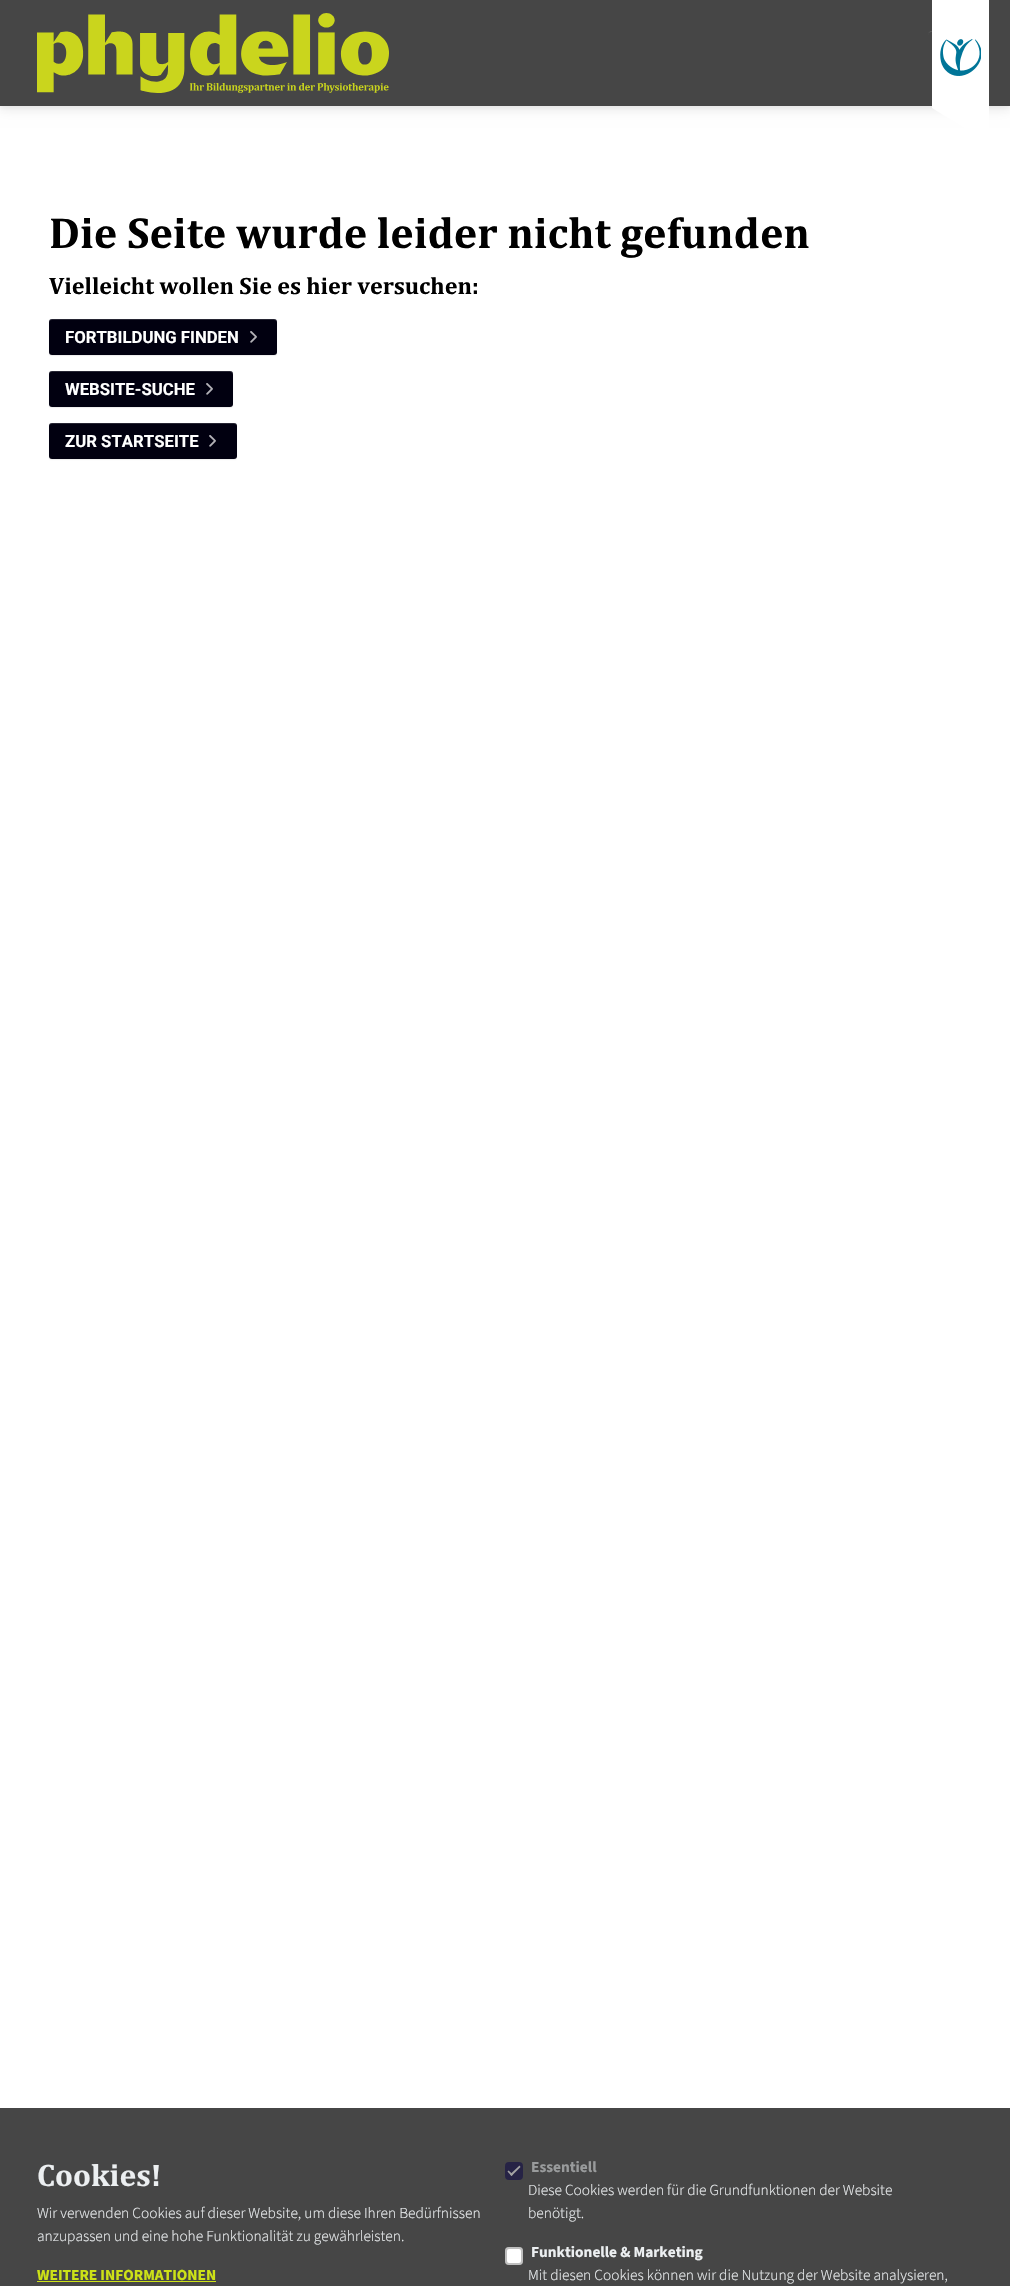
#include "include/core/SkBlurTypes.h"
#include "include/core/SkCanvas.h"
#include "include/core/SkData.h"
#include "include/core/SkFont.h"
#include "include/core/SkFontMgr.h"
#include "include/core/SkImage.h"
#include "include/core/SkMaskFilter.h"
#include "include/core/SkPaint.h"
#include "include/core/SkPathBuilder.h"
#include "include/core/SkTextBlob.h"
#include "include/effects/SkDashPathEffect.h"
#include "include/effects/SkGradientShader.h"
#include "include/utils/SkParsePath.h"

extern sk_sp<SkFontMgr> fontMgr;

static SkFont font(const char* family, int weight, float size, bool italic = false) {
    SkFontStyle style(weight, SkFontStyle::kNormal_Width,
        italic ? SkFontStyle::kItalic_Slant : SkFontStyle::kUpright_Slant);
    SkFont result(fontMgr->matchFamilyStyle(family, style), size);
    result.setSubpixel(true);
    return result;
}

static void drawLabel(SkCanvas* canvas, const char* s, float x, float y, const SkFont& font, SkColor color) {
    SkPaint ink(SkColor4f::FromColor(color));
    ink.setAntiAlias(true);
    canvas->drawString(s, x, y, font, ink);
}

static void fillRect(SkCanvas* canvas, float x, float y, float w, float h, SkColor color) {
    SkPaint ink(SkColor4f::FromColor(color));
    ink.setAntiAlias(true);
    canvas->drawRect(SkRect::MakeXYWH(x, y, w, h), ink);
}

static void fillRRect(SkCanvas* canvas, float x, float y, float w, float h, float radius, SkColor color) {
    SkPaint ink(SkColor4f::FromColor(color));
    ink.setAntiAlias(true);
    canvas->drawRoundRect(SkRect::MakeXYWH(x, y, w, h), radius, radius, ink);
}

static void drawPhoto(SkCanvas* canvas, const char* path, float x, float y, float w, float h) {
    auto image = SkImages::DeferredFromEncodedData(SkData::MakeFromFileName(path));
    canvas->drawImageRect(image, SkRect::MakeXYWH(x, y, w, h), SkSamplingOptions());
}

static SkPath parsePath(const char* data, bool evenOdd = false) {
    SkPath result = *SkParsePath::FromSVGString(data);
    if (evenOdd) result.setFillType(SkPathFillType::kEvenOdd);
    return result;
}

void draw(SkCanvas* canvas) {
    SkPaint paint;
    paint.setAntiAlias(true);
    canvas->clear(0xFFFFFFFF);
    paint.setColor(0x0D000000);
    paint.setMaskFilter(SkMaskFilter::MakeBlur(kNormal_SkBlurStyle, 2));
    canvas->drawRect(SkRect::MakeXYWH(0, 2, 1010, 106), paint);
    paint.setMaskFilter(nullptr);
    paint.setColor(0x12000000);
    paint.setMaskFilter(SkMaskFilter::MakeBlur(kNormal_SkBlurStyle, 6));
    canvas->drawRect(SkRect::MakeXYWH(0, 4, 1010, 106), paint);
    paint.setMaskFilter(nullptr);
    fillRect(canvas, 0, 0, 1010, 106, 0xFF464646);
    drawPhoto(canvas, "assets/img1.png", 37, 13, 352, 80);
    paint.setColor(0xFF626262);
    canvas->drawPath(parsePath("M931 32H970C972 32 973 33 973 35C973 30 968 31 964 31H938C933 31 928 30 928 35C928 33 929 32 931 32Z"), paint);
    paint.setColor(0xFFFFFFFF);
    canvas->drawPath(parsePath("M932 0H989V144L932 108Z"), paint);
    drawPhoto(canvas, "assets/img2.png", 940, 39, 41, 37);
    SkFont font1 = font("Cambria", 700, 44);
    drawLabel(canvas, "Die Seite wurde leider nicht gefunden", 49, 248, font1, 0xFF000000);
    SkFont font2 = font("Cambria", 700, 24);
    drawLabel(canvas, "Vielleicht wollen Sie es hier versuchen:", 49, 294, font2, 0xFF000000);
    paint.setColor(0x12000000);
    paint.setMaskFilter(SkMaskFilter::MakeBlur(kNormal_SkBlurStyle, 0.5f));
    canvas->drawRoundRect(SkRect::MakeXYWH(49, 320, 228, 36), 3, 3, paint);
    paint.setMaskFilter(nullptr);
    fillRRect(canvas, 49, 319, 228, 36, 3, 0xFF010010);
    paint.setColor(0x26FFFFFF);
    canvas->drawPath(parsePath("M52 320H274C276 320 277 321 277 323V322C277 320 276 319 274 319H52C50 319 49 320 49 322V323C49 321 50 320 52 320Z"), paint);
    SkFont font3 = font("Roboto", 700, 16.75f);
    drawLabel(canvas, "FORTBILDUNG FINDEN", 65, 343, font3, 0xFFFFFFFF);
    drawPhoto(canvas, "assets/img3.png", 250, 331, 7, 12);
    paint.setColor(0x12000000);
    paint.setMaskFilter(SkMaskFilter::MakeBlur(kNormal_SkBlurStyle, 0.5f));
    canvas->drawRoundRect(SkRect::MakeXYWH(49, 372, 184, 36), 3, 3, paint);
    paint.setMaskFilter(nullptr);
    fillRRect(canvas, 49, 371, 184, 36, 3, 0xFF010010);
    paint.setColor(0x26FFFFFF);
    canvas->drawPath(parsePath("M52 372H231L232 373L233 375C233 373 232 371 230 371H51C49 372 49 373 49 375C49 373 50 372 52 372Z"), paint);
    drawLabel(canvas, "WEBSITE-SUCHE", 65, 395, font3, 0xFFFFFFFF);
    drawPhoto(canvas, "assets/img3.png", 206, 383, 7, 12);
    paint.setColor(0x12000000);
    paint.setMaskFilter(SkMaskFilter::MakeBlur(kNormal_SkBlurStyle, 0.5f));
    canvas->drawRoundRect(SkRect::MakeXYWH(49, 424, 188, 36), 3, 3, paint);
    paint.setMaskFilter(nullptr);
    fillRRect(canvas, 49, 423, 188, 36, 3, 0xFF010010);
    paint.setColor(0x26FFFFFF);
    canvas->drawPath(parsePath("M52 424H234C236 424 237 425 237 427C237 425 236 423 234 423H52C50 423 49 425 49 427C49 425 50 424 52 424Z"), paint);
    drawLabel(canvas, "ZUR STARTSEITE", 65, 447, font3, 0xFFFFFFFF);
    drawPhoto(canvas, "assets/img3.png", 209, 435, 7, 12);
    fillRect(canvas, 0, 2108, 1010, 178, 0xFF464646);
    SkFont font4 = font("Cambria", 700, 31.5f);
    drawLabel(canvas, "Cookies!", 37, 2186, font4, 0xFFECEFF1);
    SkFont font5 = font("Source Sans 3", 300, 15.35f);
    drawLabel(canvas, "Wir verwenden Cookies auf dieser Website, um diese Ihren Bedürfnissen", 37, 2218, font5, 0xFFECEFF1);
    drawLabel(canvas, "anzupassen und eine hohe Funktionalität zu gewährleisten.", 37, 2241, font5, 0xFFECEFF1);
    SkFont font6 = font("Source Sans 3", 700, 15.35f);
    drawLabel(canvas, "WEITERE INFORMATIONEN", 37, 2280, font6, 0xFFCDE217);
    fillRect(canvas, 37, 2281, 179, 1, 0xFFCDE217);
    paint.setColor(0xFF262345);
    canvas->drawRoundRect(SkRect::MakeXYWH(506, 2163, 16, 16), 3, 3, paint);
    paint.setStroke(true);
    paint.setStrokeWidth(2);
    canvas->drawRoundRect(SkRect::MakeXYWH(506, 2163, 16, 16), 3, 3, paint);
    paint.setStroke(false);
    paint.setColor(0xFFA3A3A3);
    canvas->drawPath(parsePath("M519.5 2165.5L520.5 2167L511.5 2176L510 2174.5Z"), paint);
    canvas->drawPath(parsePath("M508.5 2170.5L513 2174.5L511.5 2176L507.5 2171.5Z"), paint);
    drawLabel(canvas, "Essentiell", 531, 2172, font6, 0xFF999B9C);
    drawLabel(canvas, "Diese Cookies werden für die Grundfunktionen der Website", 528, 2195, font5, 0xFFECEFF1);
    drawLabel(canvas, "benötigt.", 528, 2218, font5, 0xFFECEFF1);
    fillRRect(canvas, 505, 2247, 18, 18, 4, 0xFFFFFFFF);
    paint.setStroke(true);
    paint.setColor(0x40000000);
    canvas->drawRoundRect(SkRect::MakeXYWH(506, 2248, 16, 16), 3, 3, paint);
    drawLabel(canvas, "Funktionelle & Marketing", 531, 2257, font6, 0xFFECEFF1);
    drawLabel(canvas, "Mit diesen Cookies können wir die Nutzung der Website analysieren,", 528, 2280, font5, 0xFFECEFF1);
}
